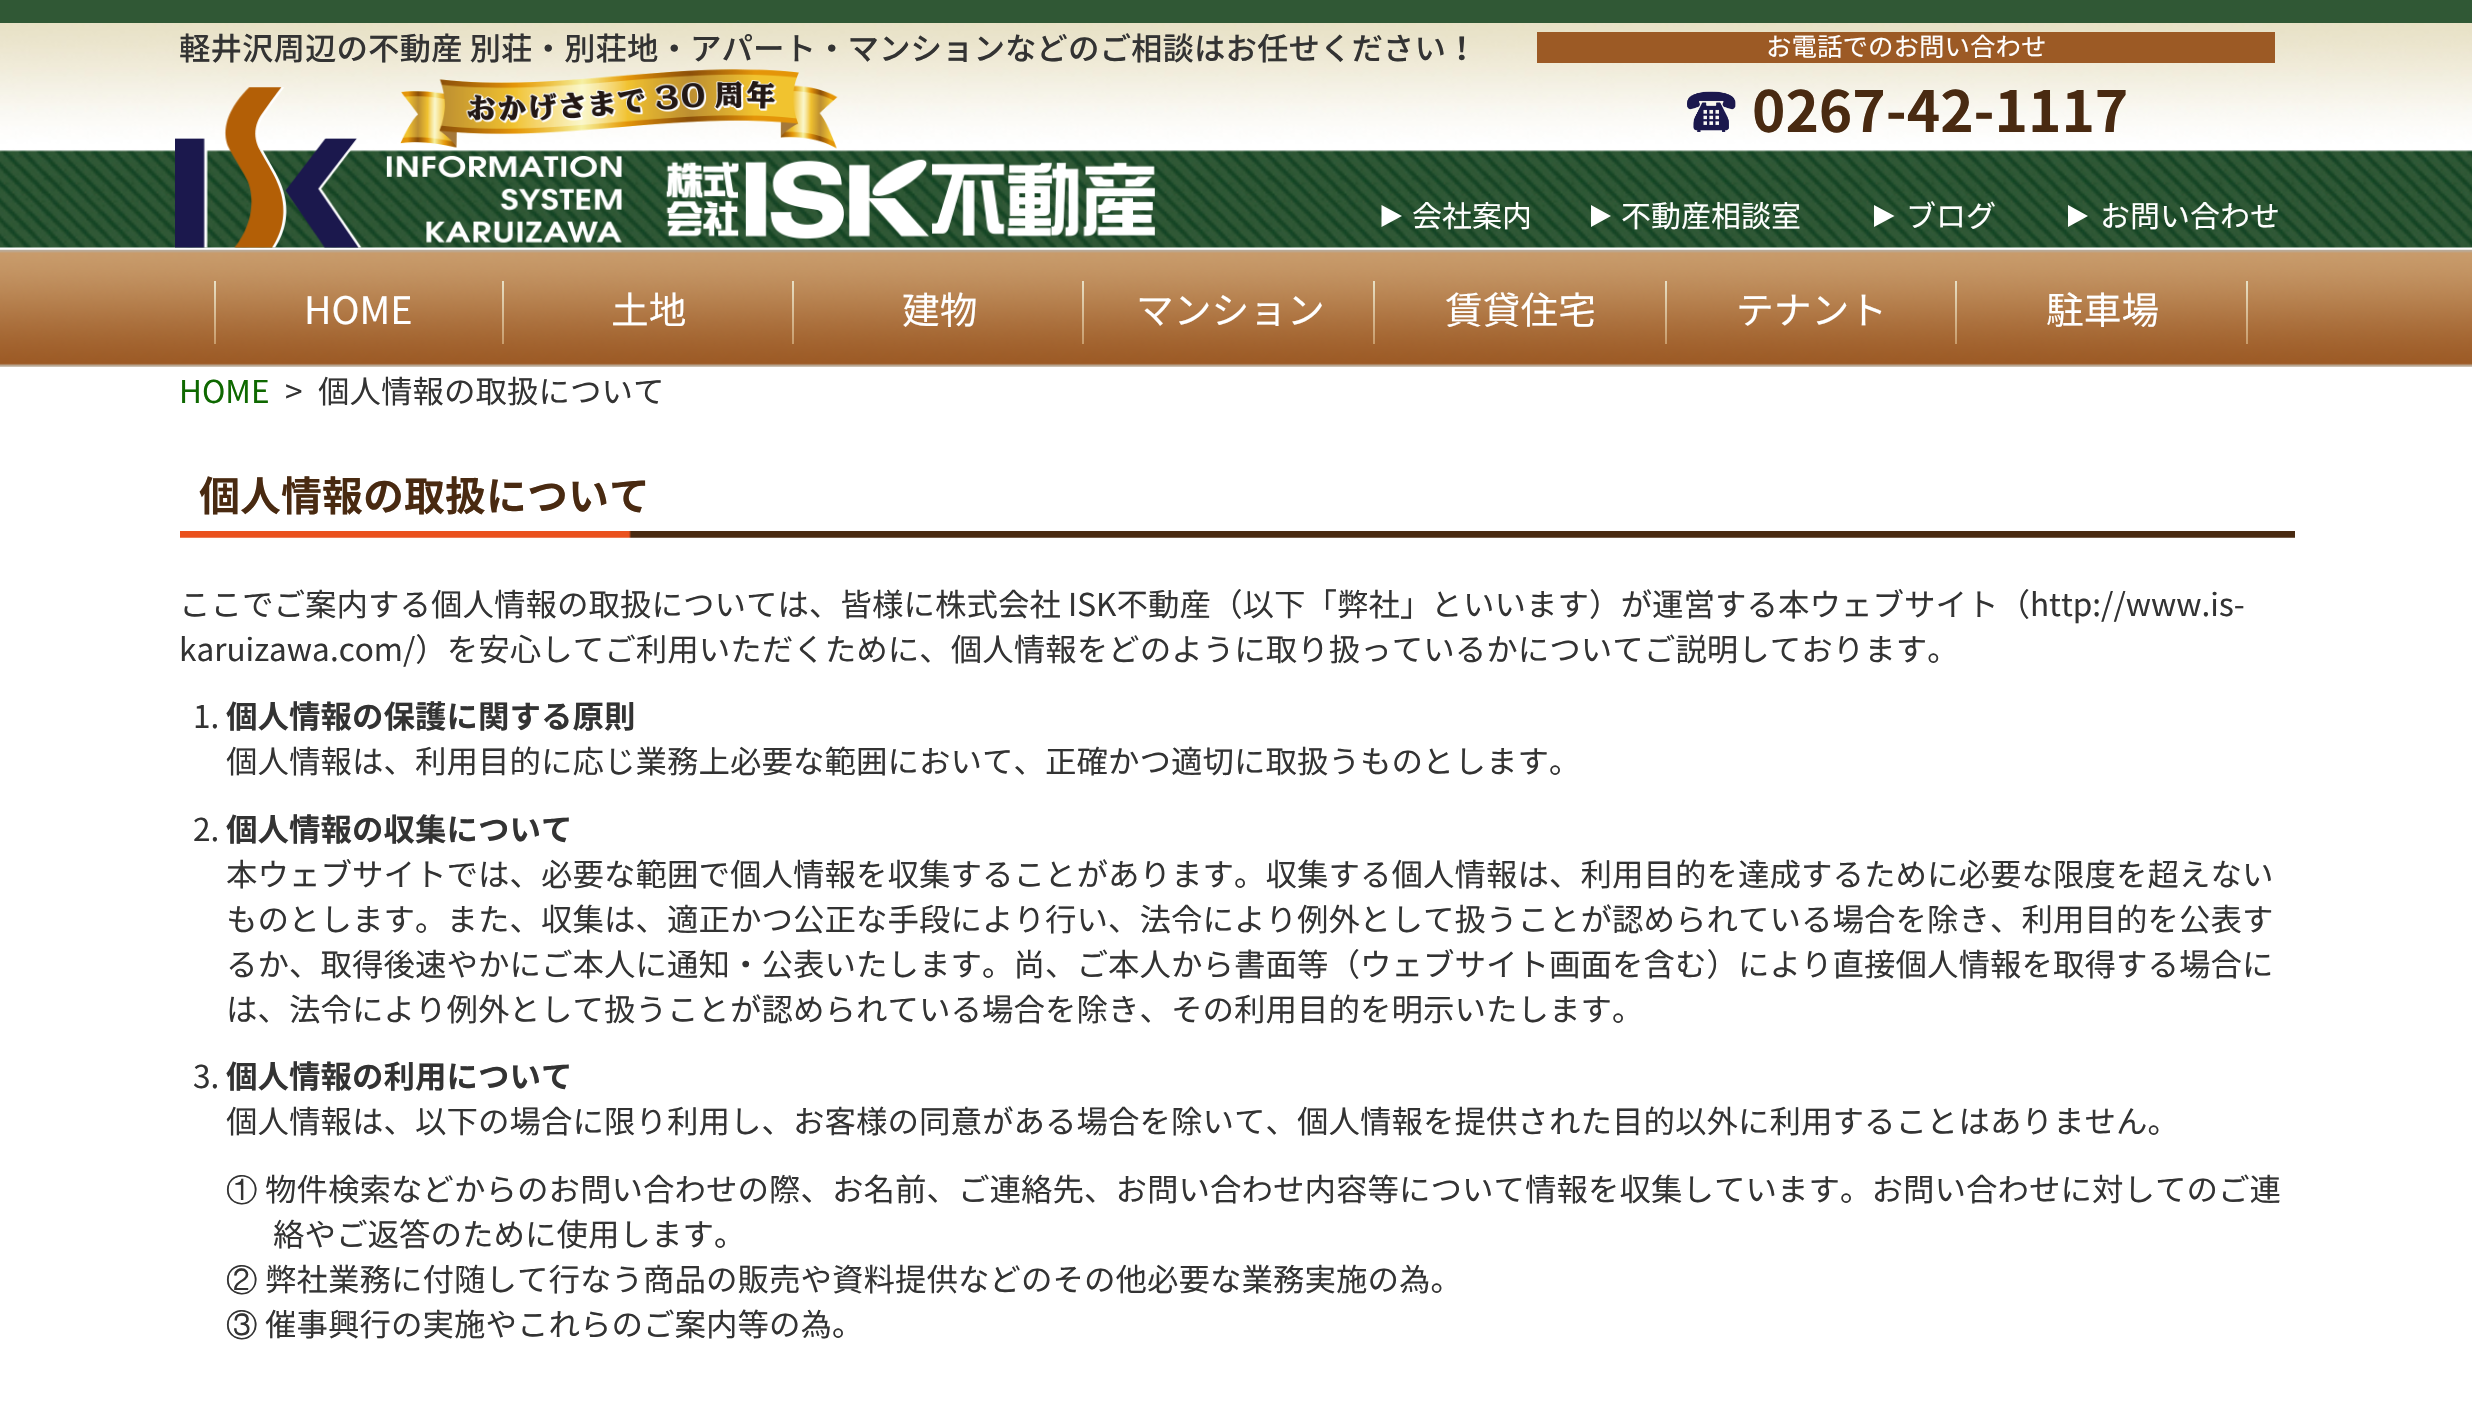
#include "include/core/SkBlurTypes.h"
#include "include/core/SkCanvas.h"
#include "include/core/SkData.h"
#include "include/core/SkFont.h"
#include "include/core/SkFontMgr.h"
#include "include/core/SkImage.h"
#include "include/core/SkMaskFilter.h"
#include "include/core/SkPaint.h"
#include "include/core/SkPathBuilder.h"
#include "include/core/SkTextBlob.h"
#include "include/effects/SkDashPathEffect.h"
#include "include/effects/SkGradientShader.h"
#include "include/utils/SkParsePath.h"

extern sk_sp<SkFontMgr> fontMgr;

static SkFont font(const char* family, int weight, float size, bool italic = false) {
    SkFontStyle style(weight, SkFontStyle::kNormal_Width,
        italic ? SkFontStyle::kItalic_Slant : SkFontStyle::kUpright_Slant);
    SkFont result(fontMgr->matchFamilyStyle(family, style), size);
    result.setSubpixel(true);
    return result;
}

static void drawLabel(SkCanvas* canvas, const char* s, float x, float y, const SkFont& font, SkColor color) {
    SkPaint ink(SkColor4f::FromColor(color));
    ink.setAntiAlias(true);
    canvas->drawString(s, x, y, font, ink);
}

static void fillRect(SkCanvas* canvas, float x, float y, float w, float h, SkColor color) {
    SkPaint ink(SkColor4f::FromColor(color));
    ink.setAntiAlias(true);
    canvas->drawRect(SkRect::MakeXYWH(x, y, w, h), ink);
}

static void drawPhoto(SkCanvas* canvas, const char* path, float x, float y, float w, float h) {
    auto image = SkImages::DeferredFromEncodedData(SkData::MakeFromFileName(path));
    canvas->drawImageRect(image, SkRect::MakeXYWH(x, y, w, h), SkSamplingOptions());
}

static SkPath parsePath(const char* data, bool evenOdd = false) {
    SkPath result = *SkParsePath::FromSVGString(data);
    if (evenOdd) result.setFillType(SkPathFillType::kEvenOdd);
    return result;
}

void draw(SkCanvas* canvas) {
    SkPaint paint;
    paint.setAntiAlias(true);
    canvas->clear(0xFFFFFFFF);
    drawPhoto(canvas, "assets/img1.png", 0, 23, 2472, 225);
    fillRect(canvas, 0, 0, 2472, 23, 0xFF305835);
    SkFont font1 = font("Noto Sans JP", 500, 31.5f);
    drawLabel(canvas, "軽井沢周辺の不動産 別荘・別荘地・アパート・マンションなどのご相談はお任せください！", 179, 60, font1, 0xFF333333);
    fillRect(canvas, 1537, 32, 738, 31, 0xFF9C5A25);
    SkFont font2 = font("Noto Sans JP", 400, 25.5f);
    drawLabel(canvas, "お電話でのお問い合わせ", 1766, 56, font2, 0xFFFFFFFF);
    drawPhoto(canvas, "assets/img2.png", 1687, 91, 49, 41);
    SkFont font3 = font("Noto Sans JP", 700, 56.75f);
    drawLabel(canvas, "0267-42-1117", 1752, 132, font3, 0xFF492A11);
    drawPhoto(canvas, "assets/img3.png", 400, 69, 438, 80);
    drawPhoto(canvas, "assets/img4.png", 175, 87, 447, 161);
    drawPhoto(canvas, "assets/img5.png", 666, 159, 489, 80);
    paint.setColor(0xFFFFFFFF);
    canvas->drawPath(parsePath("M1381.5 227V205L1402 216Z"), paint);
    SkFont font4 = font("Noto Sans JP", 400, 30);
    drawLabel(canvas, "会社案内", 1412, 227, font4, 0xFFFFFFFF);
    canvas->drawPath(parsePath("M1591 227V205L1611 216Z"), paint);
    drawLabel(canvas, "不動産相談室", 1621, 227, font4, 0xFFFFFFFF);
    canvas->drawPath(parsePath("M1874 227V205L1894.5 216Z"), paint);
    drawLabel(canvas, "ブログ", 1906, 227, font4, 0xFFFFFFFF);
    canvas->drawPath(parsePath("M2068 227V205L2088 216Z"), paint);
    drawLabel(canvas, "お問い合わせ", 2100, 227, font4, 0xFFFFFFFF);
    drawPhoto(canvas, "assets/img6.png", 0, 249, 2472, 118);
    {
        const SkColor colors[] = {0xFFE8E1C6, 0xFFC89B6B};
        const float stops[] = {0, 1};
        const SkPoint ends[] = {{215, 281}, {215, 344}};
        paint.setShader(SkGradientShader::MakeLinear(ends, colors, stops, 2, SkTileMode::kClamp));
        paint.setAlpha(255);
    }
    canvas->drawRect(SkRect::MakeXYWH(214, 281, 2, 63), paint);
    SkFont font5 = font("Noto Sans JP", 400, 37.75f);
    drawLabel(canvas, "HOME", 304, 324, font5, 0xFFFFFFFF);
    {
        const SkColor colors[] = {0xFFE8E1C6, 0xFFC89B6B};
        const float stops[] = {0, 1};
        const SkPoint ends[] = {{503, 281}, {503, 344}};
        paint.setShader(SkGradientShader::MakeLinear(ends, colors, stops, 2, SkTileMode::kClamp));
        paint.setAlpha(255);
    }
    canvas->drawRect(SkRect::MakeXYWH(502, 281, 2, 63), paint);
    drawLabel(canvas, "土地", 611, 324, font5, 0xFFFFFFFF);
    {
        const SkColor colors[] = {0xFFE8E1C6, 0xFFC89B6B};
        const float stops[] = {0, 1};
        const SkPoint ends[] = {{793, 281}, {793, 344}};
        paint.setShader(SkGradientShader::MakeLinear(ends, colors, stops, 2, SkTileMode::kClamp));
        paint.setAlpha(255);
    }
    canvas->drawRect(SkRect::MakeXYWH(792, 281, 2, 63), paint);
    drawLabel(canvas, "建物", 902, 324, font5, 0xFFFFFFFF);
    {
        const SkColor colors[] = {0xFFE8E1C6, 0xFFC89B6B};
        const float stops[] = {0, 1};
        const SkPoint ends[] = {{1083, 281}, {1083, 344}};
        paint.setShader(SkGradientShader::MakeLinear(ends, colors, stops, 2, SkTileMode::kClamp));
        paint.setAlpha(255);
    }
    canvas->drawRect(SkRect::MakeXYWH(1082, 281, 2, 63), paint);
    drawLabel(canvas, "マンション", 1136, 324, font5, 0xFFFFFFFF);
    {
        const SkColor colors[] = {0xFFE8E1C6, 0xFFC89B6B};
        const float stops[] = {0, 1};
        const SkPoint ends[] = {{1374, 281}, {1374, 344}};
        paint.setShader(SkGradientShader::MakeLinear(ends, colors, stops, 2, SkTileMode::kClamp));
        paint.setAlpha(255);
    }
    canvas->drawRect(SkRect::MakeXYWH(1373, 281, 2, 63), paint);
    drawLabel(canvas, "賃貸住宅", 1445, 324, font5, 0xFFFFFFFF);
    {
        const SkColor colors[] = {0xFFE8E1C6, 0xFFC89B6B};
        const float stops[] = {0, 1};
        const SkPoint ends[] = {{1666, 281}, {1666, 344}};
        paint.setShader(SkGradientShader::MakeLinear(ends, colors, stops, 2, SkTileMode::kClamp));
        paint.setAlpha(255);
    }
    canvas->drawRect(SkRect::MakeXYWH(1665, 281, 2, 63), paint);
    drawLabel(canvas, "テナント", 1736, 324, font5, 0xFFFFFFFF);
    {
        const SkColor colors[] = {0xFFE8E1C6, 0xFFC89B6B};
        const float stops[] = {0, 1};
        const SkPoint ends[] = {{1956, 281}, {1956, 344}};
        paint.setShader(SkGradientShader::MakeLinear(ends, colors, stops, 2, SkTileMode::kClamp));
        paint.setAlpha(255);
    }
    canvas->drawRect(SkRect::MakeXYWH(1955, 281, 2, 63), paint);
    drawLabel(canvas, "駐車場", 2046, 324, font5, 0xFFFFFFFF);
    {
        const SkColor colors[] = {0xFFE8E1C6, 0xFFC89B6B};
        const float stops[] = {0, 1};
        const SkPoint ends[] = {{2247, 281}, {2247, 344}};
        paint.setShader(SkGradientShader::MakeLinear(ends, colors, stops, 2, SkTileMode::kClamp));
        paint.setAlpha(255);
    }
    canvas->drawRect(SkRect::MakeXYWH(2246, 281, 2, 63), paint);
    SkFont font6 = font("Noto Sans JP", 400, 31.5f);
    drawLabel(canvas, "HOME", 179, 403, font6, 0xFF0E6800);
    drawLabel(canvas, ">", 285, 403, font6, 0xFF333333);
    drawLabel(canvas, "個人情報の取扱について", 318, 403, font6, 0xFF333333);
    drawPhoto(canvas, "assets/img7.png", 180, 531, 2115, 7);
    SkFont font7 = font("Noto Sans JP", 700, 41);
    drawLabel(canvas, "個人情報の取扱について", 199, 511, font7, 0xFF492A11);
    drawLabel(canvas, "ここでご案内する個人情報の取扱については、皆様に株式会社 ISK不動産（以下「弊社」といいます）が運営する本ウェブサイト（http://www.is-", 179, 616, font6, 0xFF333333);
    drawLabel(canvas, "karuizawa.com/）を安心してご利用いただくために、個人情報をどのように取り扱っているかについてご説明しております。", 179, 661, font6, 0xFF333333);
    drawLabel(canvas, "1.", 193, 728, font6, 0xFF333333);
    SkFont font8 = font("Noto Sans JP", 700, 31.5f);
    drawLabel(canvas, "個人情報の保護に関する原則", 226, 728, font8, 0xFF333333);
    drawLabel(canvas, "個人情報は、利用目的に応じ業務上必要な範囲において、正確かつ適切に取扱うものとします。", 226, 773, font6, 0xFF333333);
    drawLabel(canvas, "2.", 193, 841, font6, 0xFF333333);
    drawLabel(canvas, "個人情報の収集について", 226, 841, font8, 0xFF333333);
    drawLabel(canvas, "本ウェブサイトでは、必要な範囲で個人情報を収集することがあります。収集する個人情報は、利用目的を達成するために必要な限度を超えない", 226, 886, font6, 0xFF333333);
    drawLabel(canvas, "ものとします。また、収集は、適正かつ公正な手段により行い、法令により例外として扱うことが認められている場合を除き、利用目的を公表す", 226, 931, font6, 0xFF333333);
    drawLabel(canvas, "るか、取得後速やかにご本人に通知・公表いたします。尚、ご本人から書面等（ウェブサイト画面を含む）により直接個人情報を取得する場合に", 226, 976, font6, 0xFF333333);
    drawLabel(canvas, "は、法令により例外として扱うことが認められている場合を除き、その利用目的を明示いたします。", 226, 1021, font6, 0xFF333333);
    drawLabel(canvas, "3.", 193, 1088, font6, 0xFF333333);
    drawLabel(canvas, "個人情報の利用について", 226, 1088, font8, 0xFF333333);
    drawLabel(canvas, "個人情報は、以下の場合に限り利用し、お客様の同意がある場合を除いて、個人情報を提供された目的以外に利用することはありません。", 226, 1133, font6, 0xFF333333);
    SkFont font9 = font("WenQuanYi Zen Hei", 500, 31.5f);
    drawLabel(canvas, "①", 226, 1201, font9, 0xFF333333);
    drawLabel(canvas, "物件検索などからのお問い合わせの際、お名前、ご連絡先、お問い合わせ内容等について情報を収集しています。お問い合わせに対してのご連", 265, 1201, font6, 0xFF333333);
    drawLabel(canvas, "絡やご返答のために使用します。", 273, 1246, font6, 0xFF333333);
    drawLabel(canvas, "②", 226, 1291, font9, 0xFF333333);
    drawLabel(canvas, "弊社業務に付随して行なう商品の販売や資料提供などのその他必要な業務実施の為。", 265, 1291, font6, 0xFF333333);
    drawLabel(canvas, "③", 226, 1336, font9, 0xFF333333);
    drawLabel(canvas, "催事興行の実施やこれらのご案内等の為。", 265, 1336, font6, 0xFF333333);
}
